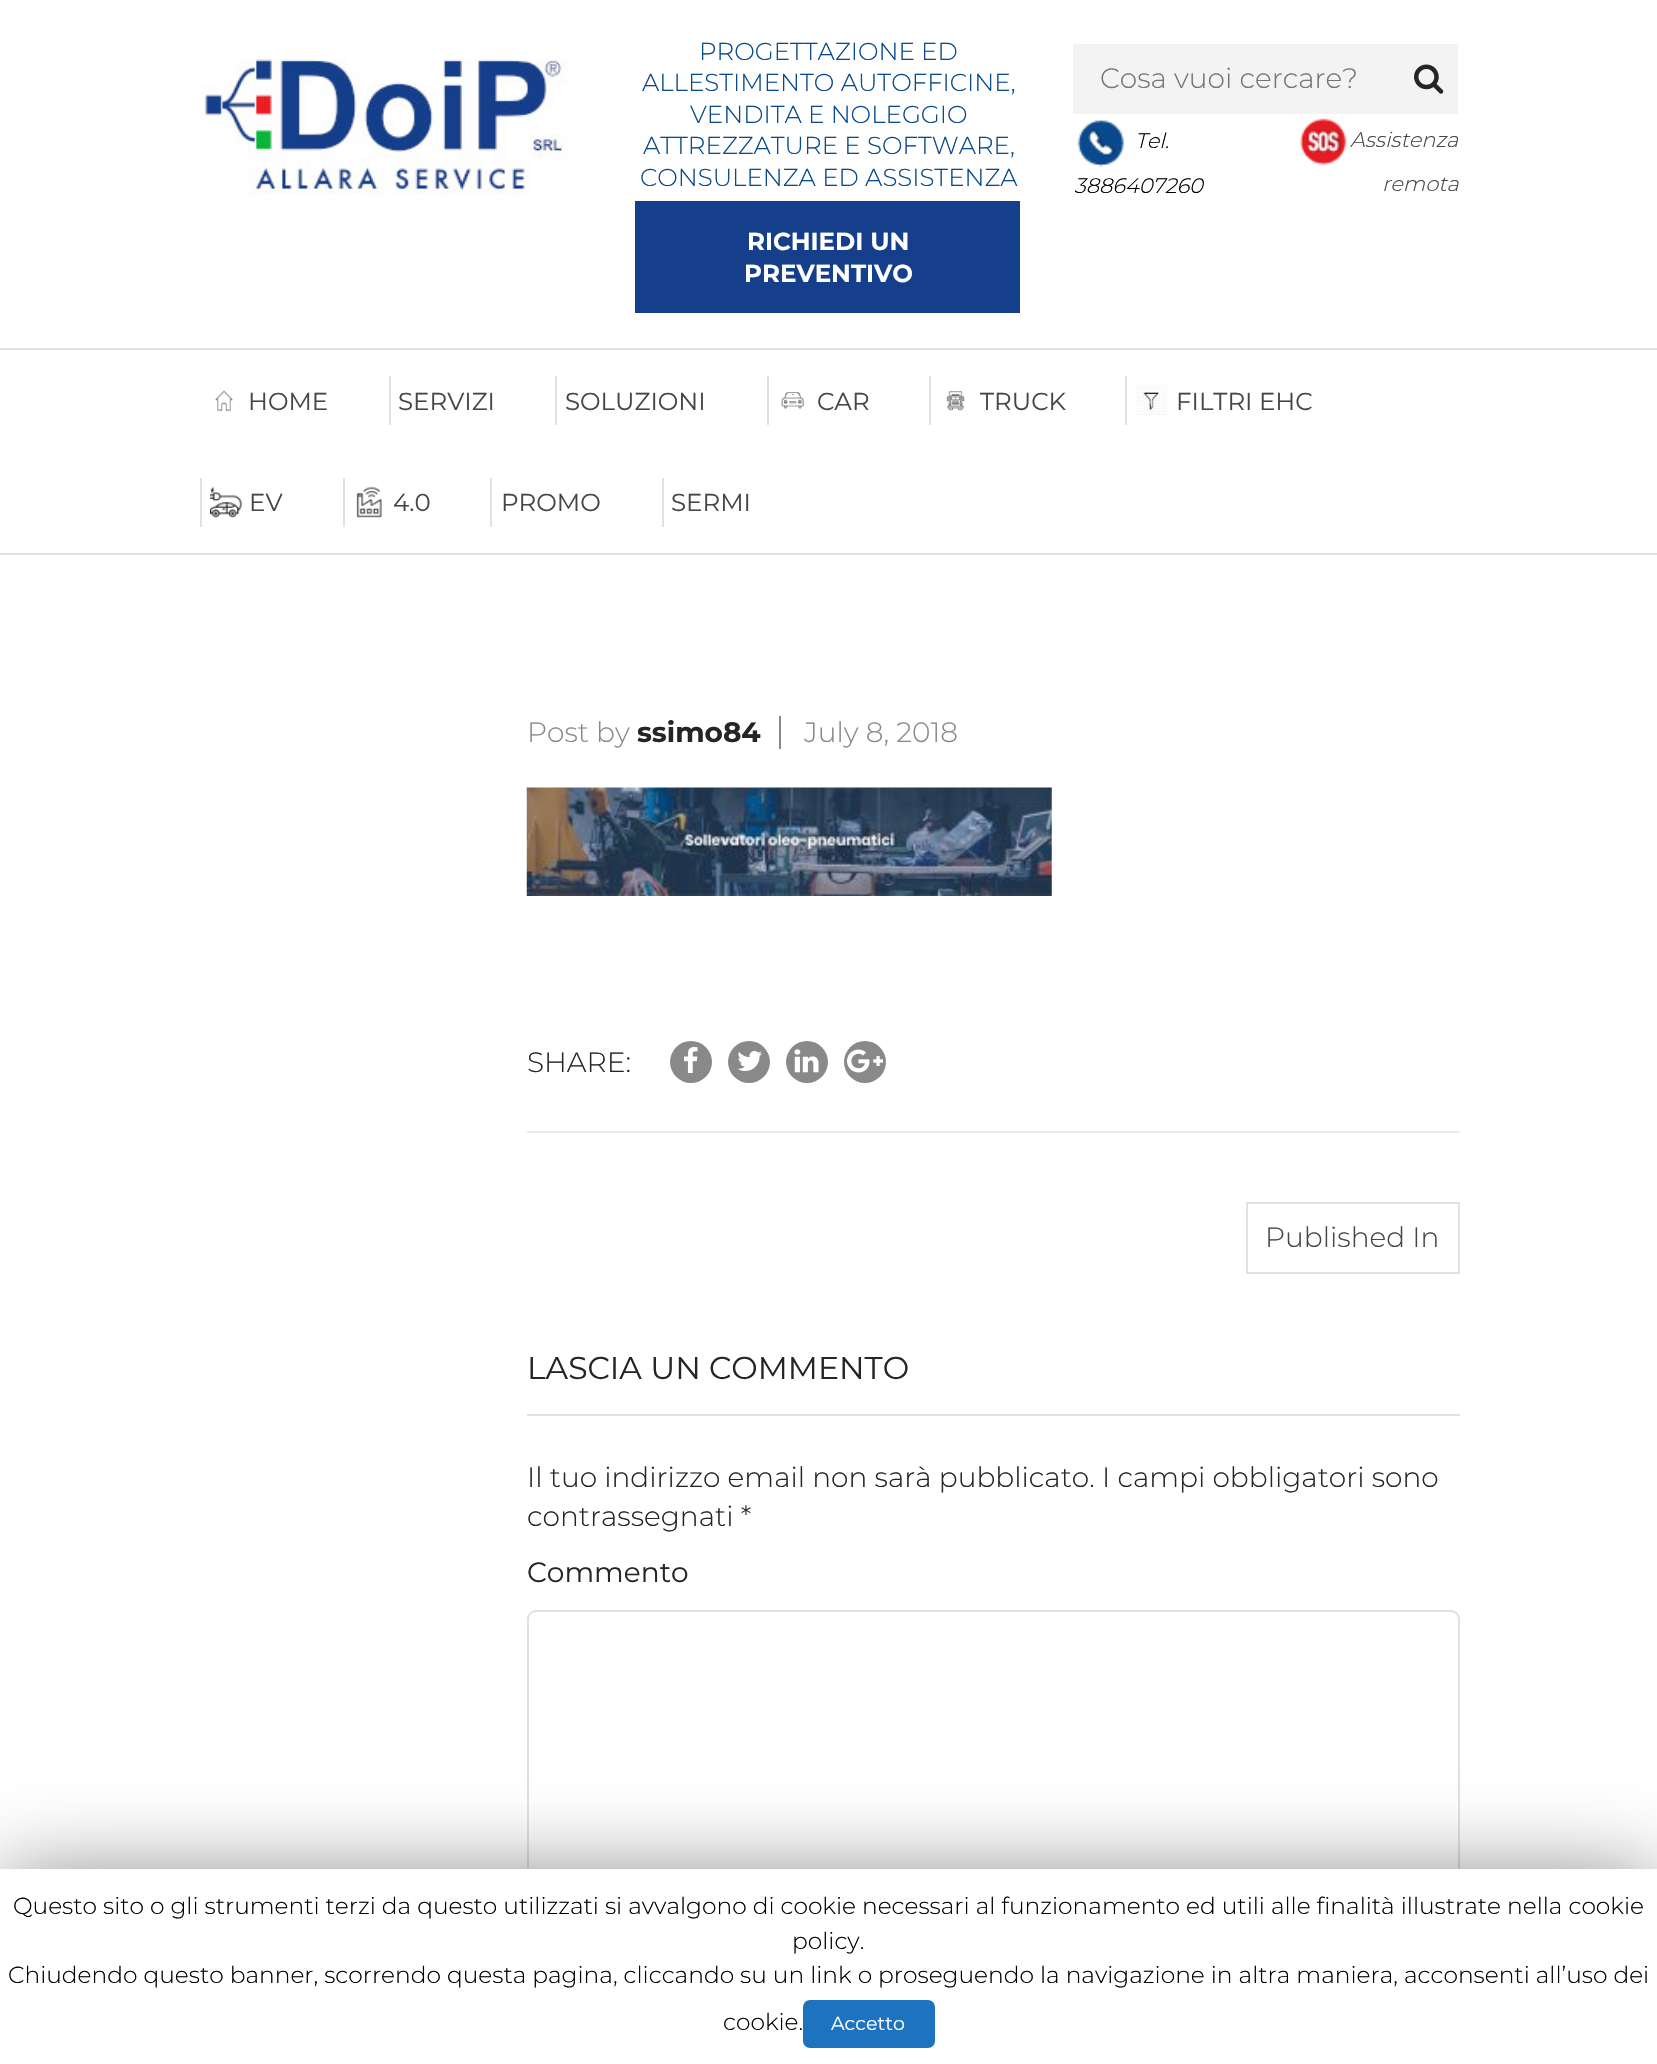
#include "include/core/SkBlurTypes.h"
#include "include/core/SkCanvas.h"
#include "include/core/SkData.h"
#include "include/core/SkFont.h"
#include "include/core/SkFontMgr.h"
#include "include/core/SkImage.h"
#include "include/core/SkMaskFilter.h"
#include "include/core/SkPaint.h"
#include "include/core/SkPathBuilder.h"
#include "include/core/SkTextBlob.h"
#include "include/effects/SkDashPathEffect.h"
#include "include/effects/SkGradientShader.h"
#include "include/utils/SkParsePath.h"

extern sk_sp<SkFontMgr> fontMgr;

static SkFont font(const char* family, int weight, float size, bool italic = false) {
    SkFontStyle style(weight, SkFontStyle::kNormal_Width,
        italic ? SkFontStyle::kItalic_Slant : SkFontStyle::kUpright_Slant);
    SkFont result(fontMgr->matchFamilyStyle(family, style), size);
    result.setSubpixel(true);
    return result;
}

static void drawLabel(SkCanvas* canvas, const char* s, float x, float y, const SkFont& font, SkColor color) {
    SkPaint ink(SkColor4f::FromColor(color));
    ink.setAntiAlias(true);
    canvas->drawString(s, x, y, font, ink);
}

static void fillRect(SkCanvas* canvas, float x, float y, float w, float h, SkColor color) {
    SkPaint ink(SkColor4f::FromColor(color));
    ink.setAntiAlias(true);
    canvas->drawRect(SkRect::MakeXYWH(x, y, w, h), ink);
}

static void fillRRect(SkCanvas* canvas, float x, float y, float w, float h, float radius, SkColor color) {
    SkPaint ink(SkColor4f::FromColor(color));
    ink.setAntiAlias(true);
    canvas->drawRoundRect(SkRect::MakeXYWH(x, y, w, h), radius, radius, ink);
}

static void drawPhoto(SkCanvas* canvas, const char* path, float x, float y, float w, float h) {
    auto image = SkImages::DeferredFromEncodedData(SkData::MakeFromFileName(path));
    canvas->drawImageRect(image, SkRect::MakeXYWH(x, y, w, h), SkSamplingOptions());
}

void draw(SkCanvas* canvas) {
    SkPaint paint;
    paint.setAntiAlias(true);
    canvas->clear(0xFFFFFFFF);
    drawPhoto(canvas, "assets/img1.png", 199, 59, 368, 136);
    SkFont font1 = font("Montserrat", 100, 24.5f);
    drawLabel(canvas, "PROGETTAZIONE ED", 699, 60, font1, 0xFF0A4A8C);
    drawLabel(canvas, "ALLESTIMENTO AUTOFFICINE,", 642, 91, font1, 0xFF0A4A8C);
    drawLabel(canvas, "VENDITA E NOLEGGIO", 690, 123, font1, 0xFF0A4A8C);
    drawLabel(canvas, "ATTREZZATURE E SOFTWARE,", 643, 154, font1, 0xFF0A4A8C);
    drawLabel(canvas, "CONSULENZA ED ASSISTENZA", 640, 186, font1, 0xFF0A4A8C);
    fillRect(canvas, 635, 201, 385, 112, 0xFF163F8B);
    SkFont font2 = font("Montserrat", 700, 24.5f);
    drawLabel(canvas, "RICHIEDI UN", 747, 250, font2, 0xFFFFFFFF);
    drawLabel(canvas, "PREVENTIVO", 744, 282, font2, 0xFFFFFFFF);
    fillRect(canvas, 1073, 44, 385, 70, 0xFFF3F3F3);
    SkFont font3 = font("Montserrat", 100, 28);
    drawLabel(canvas, "Cosa vuoi cercare?", 1100, 88, font3, 0xFF757575);
    drawPhoto(canvas, "assets/img2.png", 1414, 64, 30, 30);
    drawPhoto(canvas, "assets/img3.png", 1077, 120, 47, 47);
    SkFont font4 = font("Montserrat", 100, 21, true);
    drawLabel(canvas, "Tel.", 1135, 148, font4, 0xFF000000);
    drawLabel(canvas, "3886407260", 1074, 193, font4, 0xFF000000);
    drawPhoto(canvas, "assets/img4.png", 1300, 118, 47, 47);
    drawLabel(canvas, "Assistenza", 1350, 147, font4, 0xFF464646);
    drawLabel(canvas, "remota", 1382, 191, font4, 0xFF464646);
    fillRect(canvas, 0, 348, 1657, 2, 0xFFE1E1E1);
    fillRect(canvas, 0, 553, 1657, 2, 0xFFE1E1E1);
    drawPhoto(canvas, "assets/img5.png", 215, 390, 18, 22);
    SkFont font5 = font("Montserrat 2", 100, 24.5f);
    drawLabel(canvas, "HOME", 248, 410, font5, 0xFF464646);
    drawLabel(canvas, "SERVIZI", 398, 410, font5, 0xFF464646);
    fillRect(canvas, 389, 376, 2, 49, 0xFFE1E1E1);
    drawLabel(canvas, "SOLUZIONI", 565, 410, font5, 0xFF464646);
    fillRect(canvas, 555, 376, 2, 49, 0xFFE1E1E1);
    drawPhoto(canvas, "assets/img6.png", 781, 392, 24, 18);
    drawLabel(canvas, "CAR", 817, 410, font5, 0xFF464646);
    fillRect(canvas, 767, 376, 2, 49, 0xFFE1E1E1);
    drawPhoto(canvas, "assets/img7.png", 946, 391, 19, 20);
    drawLabel(canvas, "TRUCK", 980, 410, font5, 0xFF464646);
    fillRect(canvas, 929, 376, 2, 49, 0xFFE1E1E1);
    drawPhoto(canvas, "assets/img8.png", 1135, 385, 33, 32);
    drawLabel(canvas, "FILTRI EHC", 1176, 410, font5, 0xFF464646);
    fillRect(canvas, 1125, 376, 2, 49, 0xFFE1E1E1);
    drawPhoto(canvas, "assets/img9.png", 210, 486, 32, 32);
    drawLabel(canvas, "EV", 249, 511, font5, 0xFF464646);
    fillRect(canvas, 200, 478, 2, 49, 0xFFE1E1E1);
    drawPhoto(canvas, "assets/img10.png", 356, 486, 26, 32);
    drawLabel(canvas, "4.0", 393, 511, font5, 0xFF464646);
    fillRect(canvas, 343, 478, 2, 49, 0xFFE1E1E1);
    drawLabel(canvas, "PROMO", 501, 511, font5, 0xFF464646);
    fillRect(canvas, 490, 478, 2, 49, 0xFFE1E1E1);
    drawLabel(canvas, "SERMI", 671, 511, font5, 0xFF464646);
    fillRect(canvas, 662, 478, 2, 49, 0xFFE1E1E1);
    drawLabel(canvas, "Post by", 527, 742, font3, 0xFF898989);
    SkFont font6 = font("Montserrat", 700, 28);
    drawLabel(canvas, "ssimo84", 637, 742, font6, 0xFF252525);
    fillRect(canvas, 779, 716, 2, 33, 0xFF898989);
    drawLabel(canvas, "July 8, 2018", 804, 742, font3, 0xFF898989);
    drawPhoto(canvas, "assets/img11.png", 526, 787, 526, 109);
    fillRect(canvas, 527, 1131, 933, 2, 0xFFEBEBEB);
    drawLabel(canvas, "SHARE:", 527, 1072, font3, 0xFF252525);
    paint.setColor(0xFF898989);
    canvas->drawCircle(691, 1062, 21, paint);
    drawPhoto(canvas, "assets/img12.png", 684, 1047, 14, 26);
    canvas->drawCircle(749, 1062, 21, paint);
    drawPhoto(canvas, "assets/img13.png", 737, 1051, 25, 20);
    canvas->drawCircle(807, 1062, 21, paint);
    drawPhoto(canvas, "assets/img14.png", 794, 1049, 25, 24);
    canvas->drawCircle(865, 1062, 21, paint);
    drawPhoto(canvas, "assets/img15.png", 847, 1049, 36, 24);
    paint.setStroke(true);
    paint.setStrokeWidth(2);
    paint.setColor(0xFFE1E1E1);
    canvas->drawRect(SkRect::MakeXYWH(1247, 1203, 212, 70), paint);
    drawLabel(canvas, "Published In", 1265, 1247, font3, 0xFF464646);
    fillRect(canvas, 527, 1414, 933, 2, 0xFFE1E1E1);
    SkFont font7 = font("Montserrat 2", 100, 31.5f);
    drawLabel(canvas, "LASCIA UN COMMENTO", 527, 1379, font7, 0xFF252525);
    drawLabel(canvas, "Il tuo indirizzo email non sarà pubblicato. I campi obbligatori sono", 527, 1487, font3, 0xFF252525);
    drawLabel(canvas, "contrassegnati *", 527, 1526, font3, 0xFF252525);
    SkFont font8 = font("Montserrat 2", 100, 28);
    drawLabel(canvas, "Commento", 527, 1582, font8, 0xFF252525);
    canvas->drawRoundRect(SkRect::MakeXYWH(528, 1611, 931, 385), 8, 8, paint);
    paint.setStroke(false);
    paint.setColor(0x80000000);
    paint.setMaskFilter(SkMaskFilter::MakeBlur(kNormal_SkBlurStyle, 44));
    canvas->drawRect(SkRect::MakeXYWH(0, 1878, 1657, 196), paint);
    paint.setMaskFilter(nullptr);
    fillRect(canvas, 0, 1869, 1657, 195, 0xFFFFFFFF);
    SkFont font9 = font("Montserrat", 100, 23.33f);
    drawLabel(canvas, "Questo sito o gli strumenti terzi da questo utilizzati si avvalgono di cookie necessari al funzionamento ed utili alle finalità illustrate nella cookie", 13, 1914, font9, 0xFF000000);
    drawLabel(canvas, "policy.", 792, 1949, font9, 0xFF000000);
    drawLabel(canvas, "Chiudendo questo banner, scorrendo questa pagina, cliccando su un link o proseguendo la navigazione in altra maniera, acconsenti all’uso dei", 8, 1983, font9, 0xFF000000);
    drawLabel(canvas, "cookie.", 723, 2030, font9, 0xFF000000);
    fillRRect(canvas, 803, 2000, 132, 48, 7, 0xFF1E73BE);
    SkFont font10 = font("Montserrat 2", 100, 19);
    drawLabel(canvas, "Accetto", 831, 2030, font10, 0xFFFFFFFF);
}
